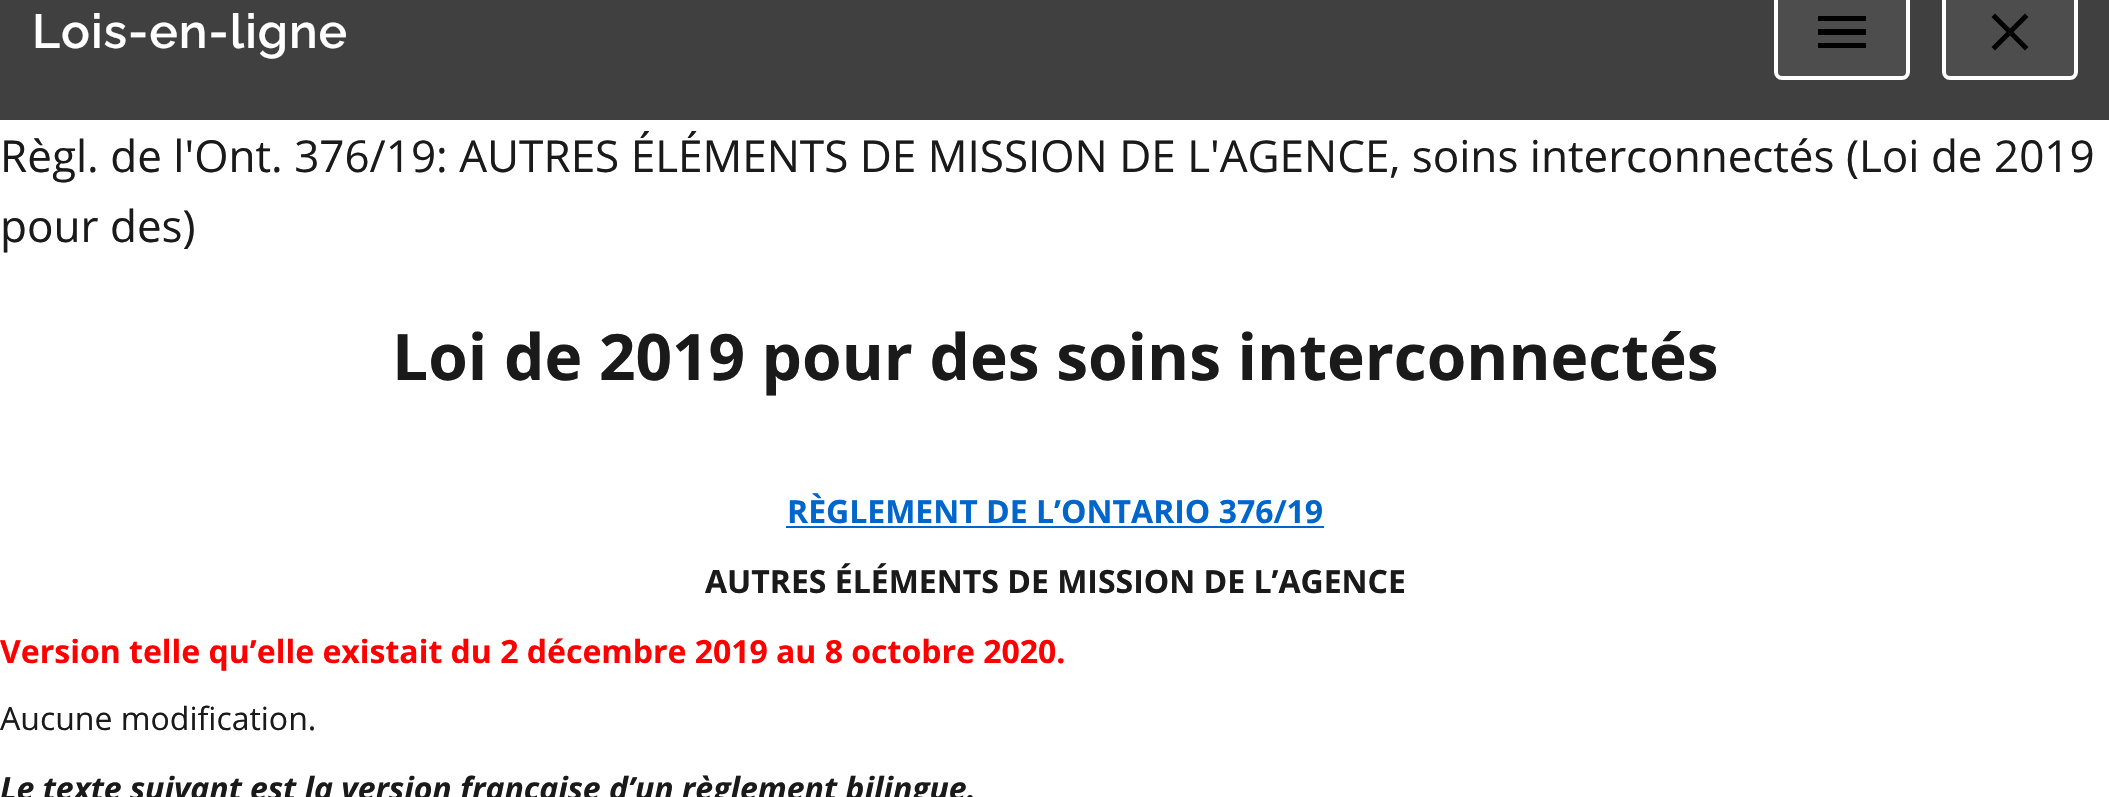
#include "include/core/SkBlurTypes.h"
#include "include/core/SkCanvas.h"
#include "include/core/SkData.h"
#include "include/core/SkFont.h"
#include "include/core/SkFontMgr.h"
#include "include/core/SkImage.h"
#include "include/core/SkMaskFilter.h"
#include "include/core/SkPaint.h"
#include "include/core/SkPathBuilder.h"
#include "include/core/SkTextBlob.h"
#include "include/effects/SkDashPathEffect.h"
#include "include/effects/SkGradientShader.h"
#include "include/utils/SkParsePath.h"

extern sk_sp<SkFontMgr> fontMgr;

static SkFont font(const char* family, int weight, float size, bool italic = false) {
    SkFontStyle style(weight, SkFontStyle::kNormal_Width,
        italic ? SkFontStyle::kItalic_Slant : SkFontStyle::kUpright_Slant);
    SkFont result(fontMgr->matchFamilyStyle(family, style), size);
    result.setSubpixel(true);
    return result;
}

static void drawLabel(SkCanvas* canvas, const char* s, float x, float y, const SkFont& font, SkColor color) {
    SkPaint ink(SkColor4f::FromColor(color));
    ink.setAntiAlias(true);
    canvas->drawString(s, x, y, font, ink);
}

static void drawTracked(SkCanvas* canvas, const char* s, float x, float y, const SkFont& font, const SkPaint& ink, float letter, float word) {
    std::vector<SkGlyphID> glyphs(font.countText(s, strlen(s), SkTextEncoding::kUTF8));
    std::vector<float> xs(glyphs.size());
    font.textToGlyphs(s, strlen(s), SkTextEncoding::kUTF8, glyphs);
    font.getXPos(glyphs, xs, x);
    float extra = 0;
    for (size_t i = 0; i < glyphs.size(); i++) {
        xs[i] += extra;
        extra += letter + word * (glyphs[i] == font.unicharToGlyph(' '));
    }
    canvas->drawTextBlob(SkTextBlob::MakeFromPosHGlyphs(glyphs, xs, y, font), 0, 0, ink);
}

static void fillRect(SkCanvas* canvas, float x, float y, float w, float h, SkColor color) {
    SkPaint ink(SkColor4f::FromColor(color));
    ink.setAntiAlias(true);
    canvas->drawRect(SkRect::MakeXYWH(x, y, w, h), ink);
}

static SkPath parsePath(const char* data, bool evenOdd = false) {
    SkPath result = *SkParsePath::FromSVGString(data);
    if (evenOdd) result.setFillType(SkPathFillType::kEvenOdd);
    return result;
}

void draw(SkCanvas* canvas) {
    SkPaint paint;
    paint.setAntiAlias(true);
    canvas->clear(0xFFFFFFFF);
    fillRect(canvas, 0, 0, 2109, 120, 0xFF404040);
    SkFont font1 = font("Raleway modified", 600, 48);
    paint.setColor(0xFFFFFFFF);
    drawTracked(canvas, "Lois-en-ligne", 32, 48, font1, paint, 1, 0);
    paint.setColor(0xFF4D4D4D);
    canvas->drawRoundRect(SkRect::MakeXYWH(1776, -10, 132, 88), 6, 6, paint);
    paint.setStroke(true);
    paint.setStrokeWidth(4);
    paint.setColor(0xFFFFFFFF);
    canvas->drawRoundRect(SkRect::MakeXYWH(1776, -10, 132, 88), 6, 6, paint);
    paint.setStroke(false);
    paint.setColor(0xFF000000);
    canvas->drawPath(parsePath("M1818 48H1866V43H1818ZM1818 35H1866V29H1818ZM1818 16V21H1866V16Z"), paint);
    paint.setColor(0xFF4D4D4D);
    canvas->drawRoundRect(SkRect::MakeXYWH(1944, -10, 132, 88), 6, 6, paint);
    paint.setStroke(true);
    paint.setColor(0xFFFFFFFF);
    canvas->drawRoundRect(SkRect::MakeXYWH(1944, -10, 132, 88), 6, 6, paint);
    paint.setStroke(false);
    paint.setColor(0xFF000000);
    canvas->drawPath(parsePath("M2028.5 17L2025 13.5L2010 28.5L1995 13.5L1991.5 17L2006.5 32L1991.5 47L1995 50.5L2010 35.5L2025 50.5L2028.5 47L2013.5 32Z"), paint);
    SkFont font2 = font("Open Sans", 400, 44);
    drawLabel(canvas, "Règl. de l'Ont. 376/19: AUTRES ÉLÉMENTS DE MISSION DE L'AGENCE, soins interconnectés (Loi de 2019", 0, 172, font2, 0xFF1A1A1A);
    drawLabel(canvas, "pour des)", 0, 242, font2, 0xFF1A1A1A);
    SkFont font3 = font("Open Sans", 700, 64);
    drawLabel(canvas, "Loi de 2019 pour des soins interconnectés", 392, 380, font3, 0xFF1A1A1A);
    SkFont font4 = font("Open Sans", 700, 32);
    drawLabel(canvas, "RÈGLEMENT DE L’ONTARIO 376/19", 787, 523, font4, 0xFF0066CC);
    fillRect(canvas, 786, 526, 538, 2, 0xFF0066CC);
    drawLabel(canvas, "AUTRES ÉLÉMENTS DE MISSION DE L’AGENCE", 705, 593, font4, 0xFF1A1A1A);
    drawLabel(canvas, "Version telle qu’elle existait du 2 décembre 2019 au 8 octobre 2020.", 0, 663, font4, 0xFFFF0000);
    SkFont font5 = font("Open Sans", 400, 32);
    drawLabel(canvas, "Aucune modification.", 0, 730, font5, 0xFF1A1A1A);
    SkFont font6 = font("Open Sans", 700, 32, true);
    drawLabel(canvas, "Le texte suivant est la version française d’un règlement bilingue.", 0, 800, font6, 0xFF1A1A1A);
}
